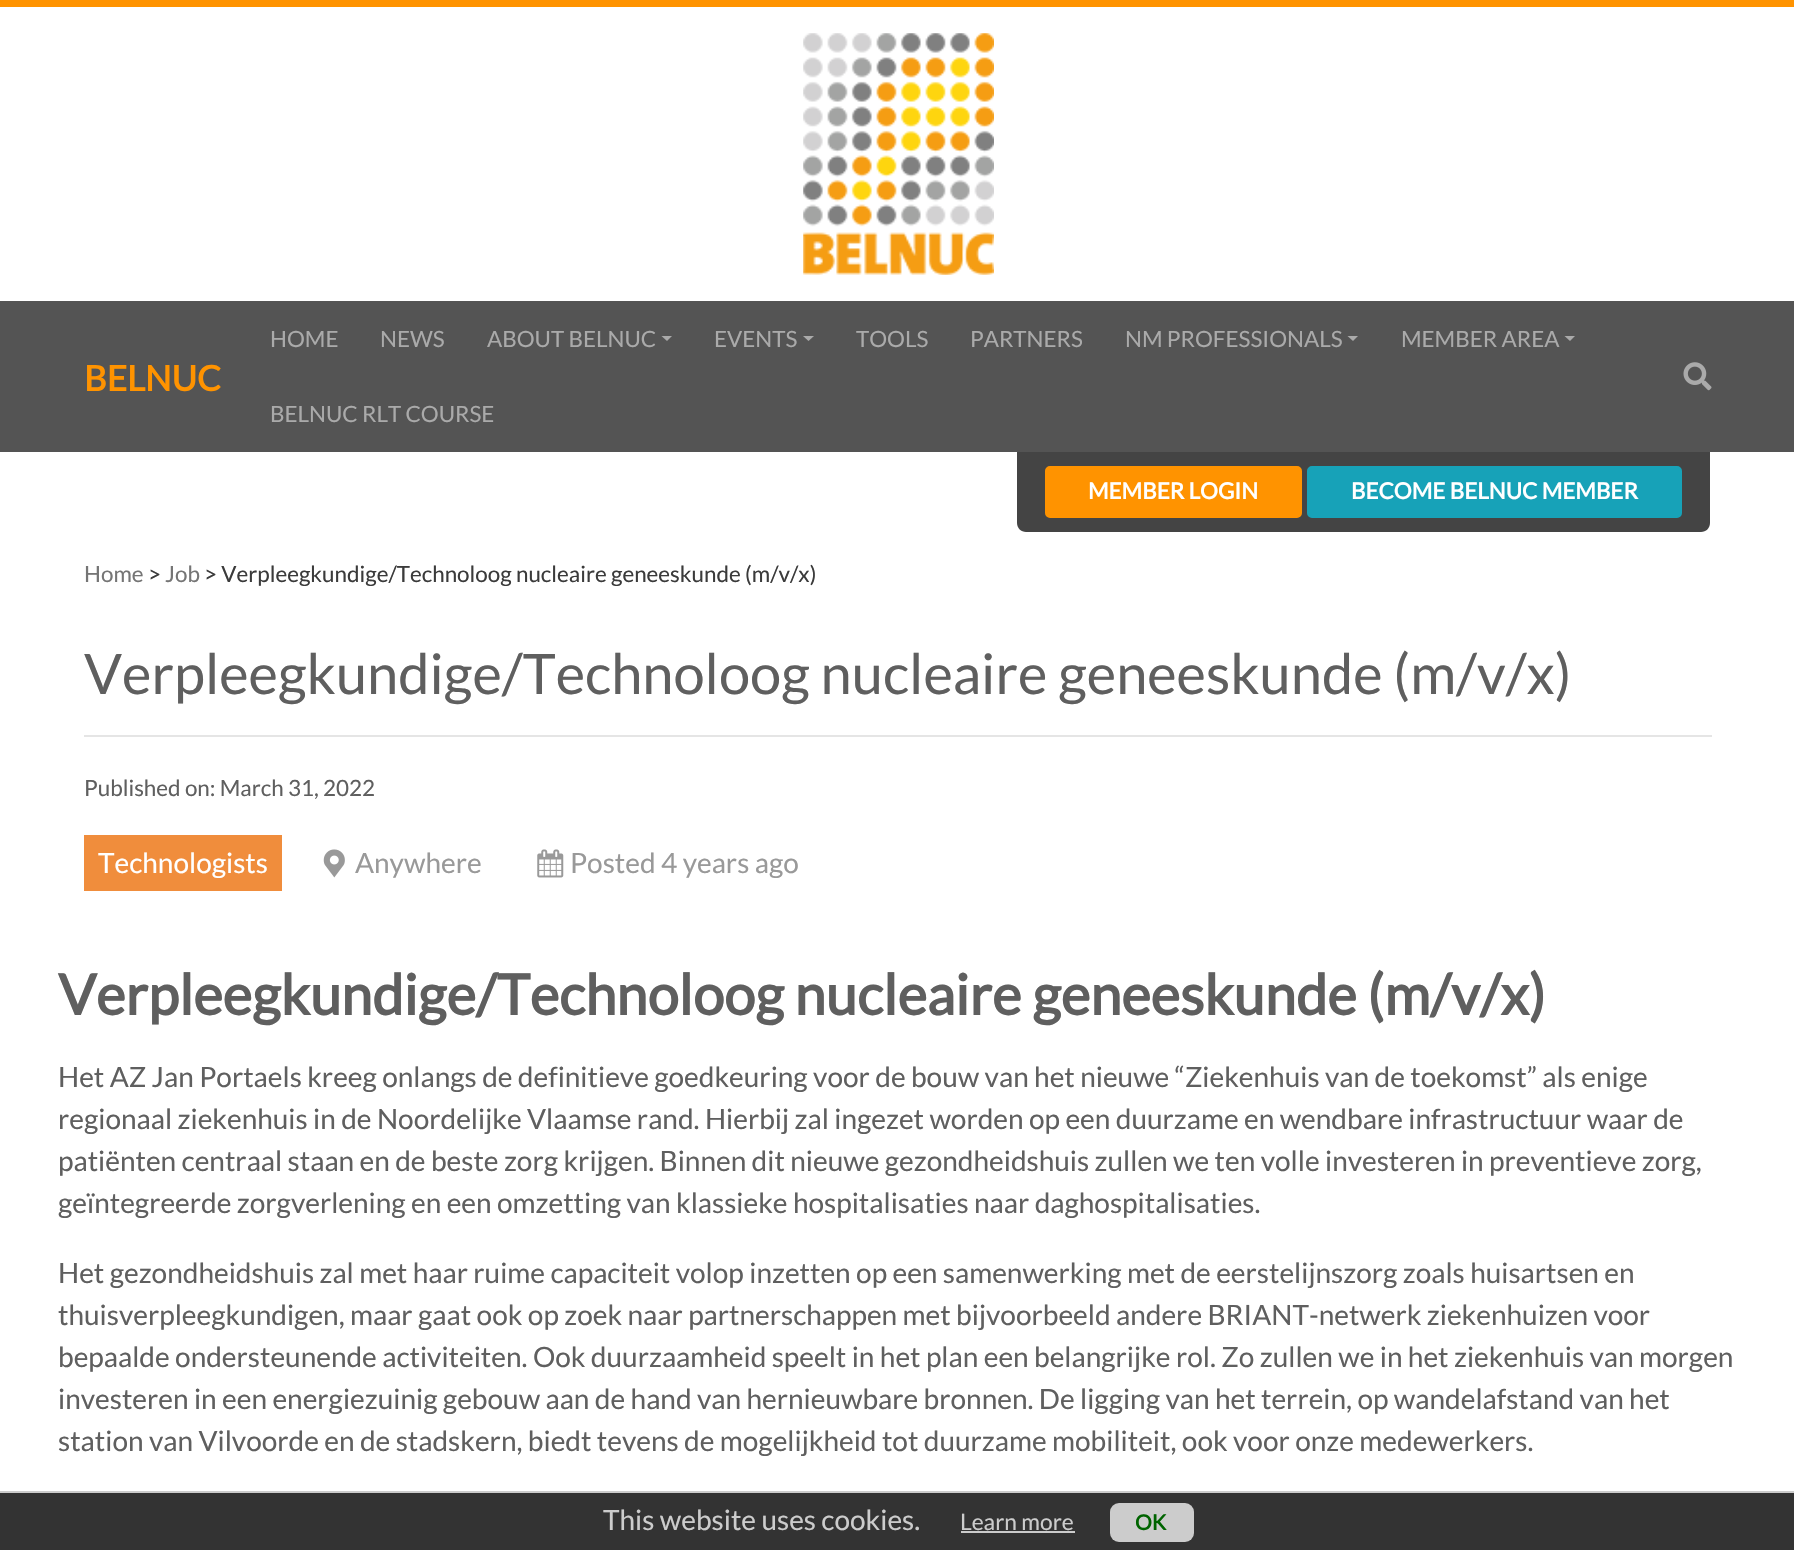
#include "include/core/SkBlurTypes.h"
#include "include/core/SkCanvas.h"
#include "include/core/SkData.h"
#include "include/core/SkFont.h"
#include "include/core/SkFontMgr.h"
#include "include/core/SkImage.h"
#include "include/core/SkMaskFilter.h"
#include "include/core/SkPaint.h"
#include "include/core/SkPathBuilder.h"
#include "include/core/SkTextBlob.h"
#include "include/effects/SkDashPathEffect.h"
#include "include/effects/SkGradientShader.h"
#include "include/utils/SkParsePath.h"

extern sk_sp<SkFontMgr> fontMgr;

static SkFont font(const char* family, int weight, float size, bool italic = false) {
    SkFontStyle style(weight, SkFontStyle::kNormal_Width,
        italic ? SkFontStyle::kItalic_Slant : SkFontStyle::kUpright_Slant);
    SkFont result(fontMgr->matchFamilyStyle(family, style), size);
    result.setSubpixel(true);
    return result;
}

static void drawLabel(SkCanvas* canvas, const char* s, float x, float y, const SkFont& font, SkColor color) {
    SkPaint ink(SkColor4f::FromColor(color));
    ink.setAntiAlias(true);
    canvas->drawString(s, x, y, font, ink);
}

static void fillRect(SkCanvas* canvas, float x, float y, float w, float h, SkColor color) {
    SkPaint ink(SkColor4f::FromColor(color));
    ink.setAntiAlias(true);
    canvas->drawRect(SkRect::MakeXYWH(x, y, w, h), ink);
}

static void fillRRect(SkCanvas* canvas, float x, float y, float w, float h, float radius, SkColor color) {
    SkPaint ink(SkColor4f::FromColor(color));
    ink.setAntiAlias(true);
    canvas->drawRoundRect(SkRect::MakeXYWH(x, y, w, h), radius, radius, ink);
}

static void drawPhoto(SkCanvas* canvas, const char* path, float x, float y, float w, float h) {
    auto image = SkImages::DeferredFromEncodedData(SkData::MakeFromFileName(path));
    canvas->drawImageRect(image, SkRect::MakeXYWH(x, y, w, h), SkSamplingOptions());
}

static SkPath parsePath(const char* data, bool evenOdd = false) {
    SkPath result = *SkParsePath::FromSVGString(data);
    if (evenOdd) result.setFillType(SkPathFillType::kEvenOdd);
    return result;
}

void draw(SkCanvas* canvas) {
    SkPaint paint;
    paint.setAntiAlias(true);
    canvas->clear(0xFFFFFFFF);
    fillRect(canvas, 0, 0, 1794, 7, 0xFFFF9300);
    drawPhoto(canvas, "assets/img1.png", 803, 33, 191, 242);
    fillRect(canvas, 0, 301, 1794, 151, 0xFF545454);
    SkFont font1 = font("Lato", 700, 35);
    drawLabel(canvas, "BELNUC", 84, 391, font1, 0xFFFF9300);
    SkFont font2 = font("Lato", 400, 22.4f);
    drawLabel(canvas, "HOME", 270, 347, font2, 0xFFAAAAAA);
    drawLabel(canvas, "NEWS", 380, 347, font2, 0xFFAAAAAA);
    drawLabel(canvas, "ABOUT BELNUC", 487, 347, font2, 0xFFAAAAAA);
    paint.setColor(0xFFAAAAAA);
    canvas->drawPath(parsePath("M661.5 336H672L667 341Z"), paint);
    drawLabel(canvas, "EVENTS", 714, 347, font2, 0xFFAAAAAA);
    canvas->drawPath(parsePath("M803 336H814L808.5 341Z"), paint);
    drawLabel(canvas, "TOOLS", 856, 347, font2, 0xFFAAAAAA);
    drawLabel(canvas, "PARTNERS", 970, 347, font2, 0xFFAAAAAA);
    drawLabel(canvas, "NM PROFESSIONALS", 1125, 347, font2, 0xFFAAAAAA);
    canvas->drawPath(parsePath("M1347.5 336H1358L1353 341Z"), paint);
    drawLabel(canvas, "MEMBER AREA", 1401, 347, font2, 0xFFAAAAAA);
    canvas->drawPath(parsePath("M1564.5 336H1575L1570 341Z"), paint);
    drawLabel(canvas, "BELNUC RLT COURSE", 270, 422, font2, 0xFFAAAAAA);
    drawPhoto(canvas, "assets/img2.png", 1683, 362, 29, 29);
    paint.setColor(0xFF444444);
    canvas->drawPath(parsePath("M1017 452H1710V523C1710 528 1706 532 1701 532H1026C1021 532 1017 528 1017 523Z"), paint);
    paint.setColor(0xFFFF9300);
    canvas->drawRoundRect(SkRect::MakeXYWH(1046, 467, 255, 50), 4, 4, paint);
    paint.setStroke(true);
    paint.setStrokeWidth(2);
    canvas->drawRoundRect(SkRect::MakeXYWH(1046, 467, 255, 50), 4, 4, paint);
    SkFont font3 = font("Lato", 700, 22.4f);
    drawLabel(canvas, "MEMBER LOGIN", 1088, 499, font3, 0xFFFFFFFF);
    paint.setStroke(false);
    paint.setColor(0xFF17A2B8);
    canvas->drawRoundRect(SkRect::MakeXYWH(1308, 467, 373, 50), 4, 4, paint);
    paint.setStroke(true);
    canvas->drawRoundRect(SkRect::MakeXYWH(1308, 467, 373, 50), 4, 4, paint);
    drawLabel(canvas, "BECOME BELNUC MEMBER", 1351, 499, font3, 0xFFFFFFFF);
    drawLabel(canvas, "Home", 84, 582, font2, 0xFF757575);
    drawLabel(canvas, ">", 148, 582, font2, 0xFF3B3B3B);
    drawLabel(canvas, "Job", 165, 582, font2, 0xFF757575);
    drawLabel(canvas, "> Verpleegkundige/Technoloog nucleaire geneeskunde (m/v/x)", 204, 582, font2, 0xFF3B3B3B);
    fillRect(canvas, 84, 735, 1628, 2, 0xFFE5E5E5);
    SkFont font4 = font("Lato", 400, 56);
    drawLabel(canvas, "Verpleegkundige/Technoloog nucleaire geneeskunde (m/v/x)", 84, 694, font4, 0xFF5F5F5F);
    drawLabel(canvas, "Published on: March 31, 2022", 84, 796, font2, 0xFF5F5F5F);
    fillRect(canvas, 84, 835, 198, 56, 0xFFF08D3C);
    SkFont font5 = font("Lato", 400, 28);
    drawLabel(canvas, "Technologists", 98, 873, font5, 0xFFFFFFFF);
    drawPhoto(canvas, "assets/img3.png", 323, 849, 22, 29);
    drawLabel(canvas, "Anywhere", 355, 873, font5, 0xFF999999);
    drawPhoto(canvas, "assets/img4.png", 537, 849, 27, 29);
    drawLabel(canvas, "Posted 4 years ago", 570, 873, font5, 0xFF999999);
    SkFont font6 = font("Lato", 700, 56);
    drawLabel(canvas, "Verpleegkundige/Technoloog nucleaire geneeskunde (m/v/x)", 58, 1015, font6, 0xFF5F5F5F);
    drawLabel(canvas, "Het AZ Jan Portaels kreeg onlangs de definitieve goedkeuring voor de bouw van het nieuwe “Ziekenhuis van de toekomst” als enige", 58, 1087, font5, 0xFF5F5F5F);
    drawLabel(canvas, "regionaal ziekenhuis in de Noordelijke Vlaamse rand. Hierbij zal ingezet worden op een duurzame en wendbare infrastructuur waar de", 58, 1129, font5, 0xFF5F5F5F);
    drawLabel(canvas, "patiënten centraal staan en de beste zorg krijgen. Binnen dit nieuwe gezondheidshuis zullen we ten volle investeren in preventieve zorg,", 58, 1171, font5, 0xFF5F5F5F);
    drawLabel(canvas, "geïntegreerde zorgverlening en een omzetting van klassieke hospitalisaties naar daghospitalisaties.", 58, 1213, font5, 0xFF5F5F5F);
    drawLabel(canvas, "Het gezondheidshuis zal met haar ruime capaciteit volop inzetten op een samenwerking met de eerstelijnszorg zoals huisartsen en", 58, 1283, font5, 0xFF5F5F5F);
    drawLabel(canvas, "thuisverpleegkundigen, maar gaat ook op zoek naar partnerschappen met bijvoorbeeld andere BRIANT-netwerk ziekenhuizen voor", 58, 1325, font5, 0xFF5F5F5F);
    drawLabel(canvas, "bepaalde ondersteunende activiteiten. Ook duurzaamheid speelt in het plan een belangrijke rol. Zo zullen we in het ziekenhuis van morgen", 58, 1367, font5, 0xFF5F5F5F);
    drawLabel(canvas, "investeren in een energiezuinig gebouw aan de hand van hernieuwbare bronnen. De ligging van het terrein, op wandelafstand van het", 58, 1409, font5, 0xFF5F5F5F);
    drawLabel(canvas, "station van Vilvoorde en de stadskern, biedt tevens de mogelijkheid tot duurzame mobiliteit, ook voor onze medewerkers.", 58, 1451, font5, 0xFF5F5F5F);
    fillRect(canvas, 0, 1493, 1794, 57, 0xFF333333);
    fillRect(canvas, 0, 1491, 1794, 2, 0xFFCCCCCC);
    drawLabel(canvas, "This website uses cookies.", 603, 1530, font5, 0xFFCCCCCC);
    SkFont font7 = font("Lato", 400, 22.75f);
    drawLabel(canvas, "Learn more", 960, 1530, font7, 0xFFCCCCCC);
    fillRect(canvas, 961, 1531, 114, 2, 0xFFCCCCCC);
    fillRRect(canvas, 1110, 1503, 84, 39, 9, 0xFFCCCCCC);
    SkFont font8 = font("Lato", 700, 21);
    drawLabel(canvas, "OK", 1135, 1530, font8, 0xFF006400);
}
